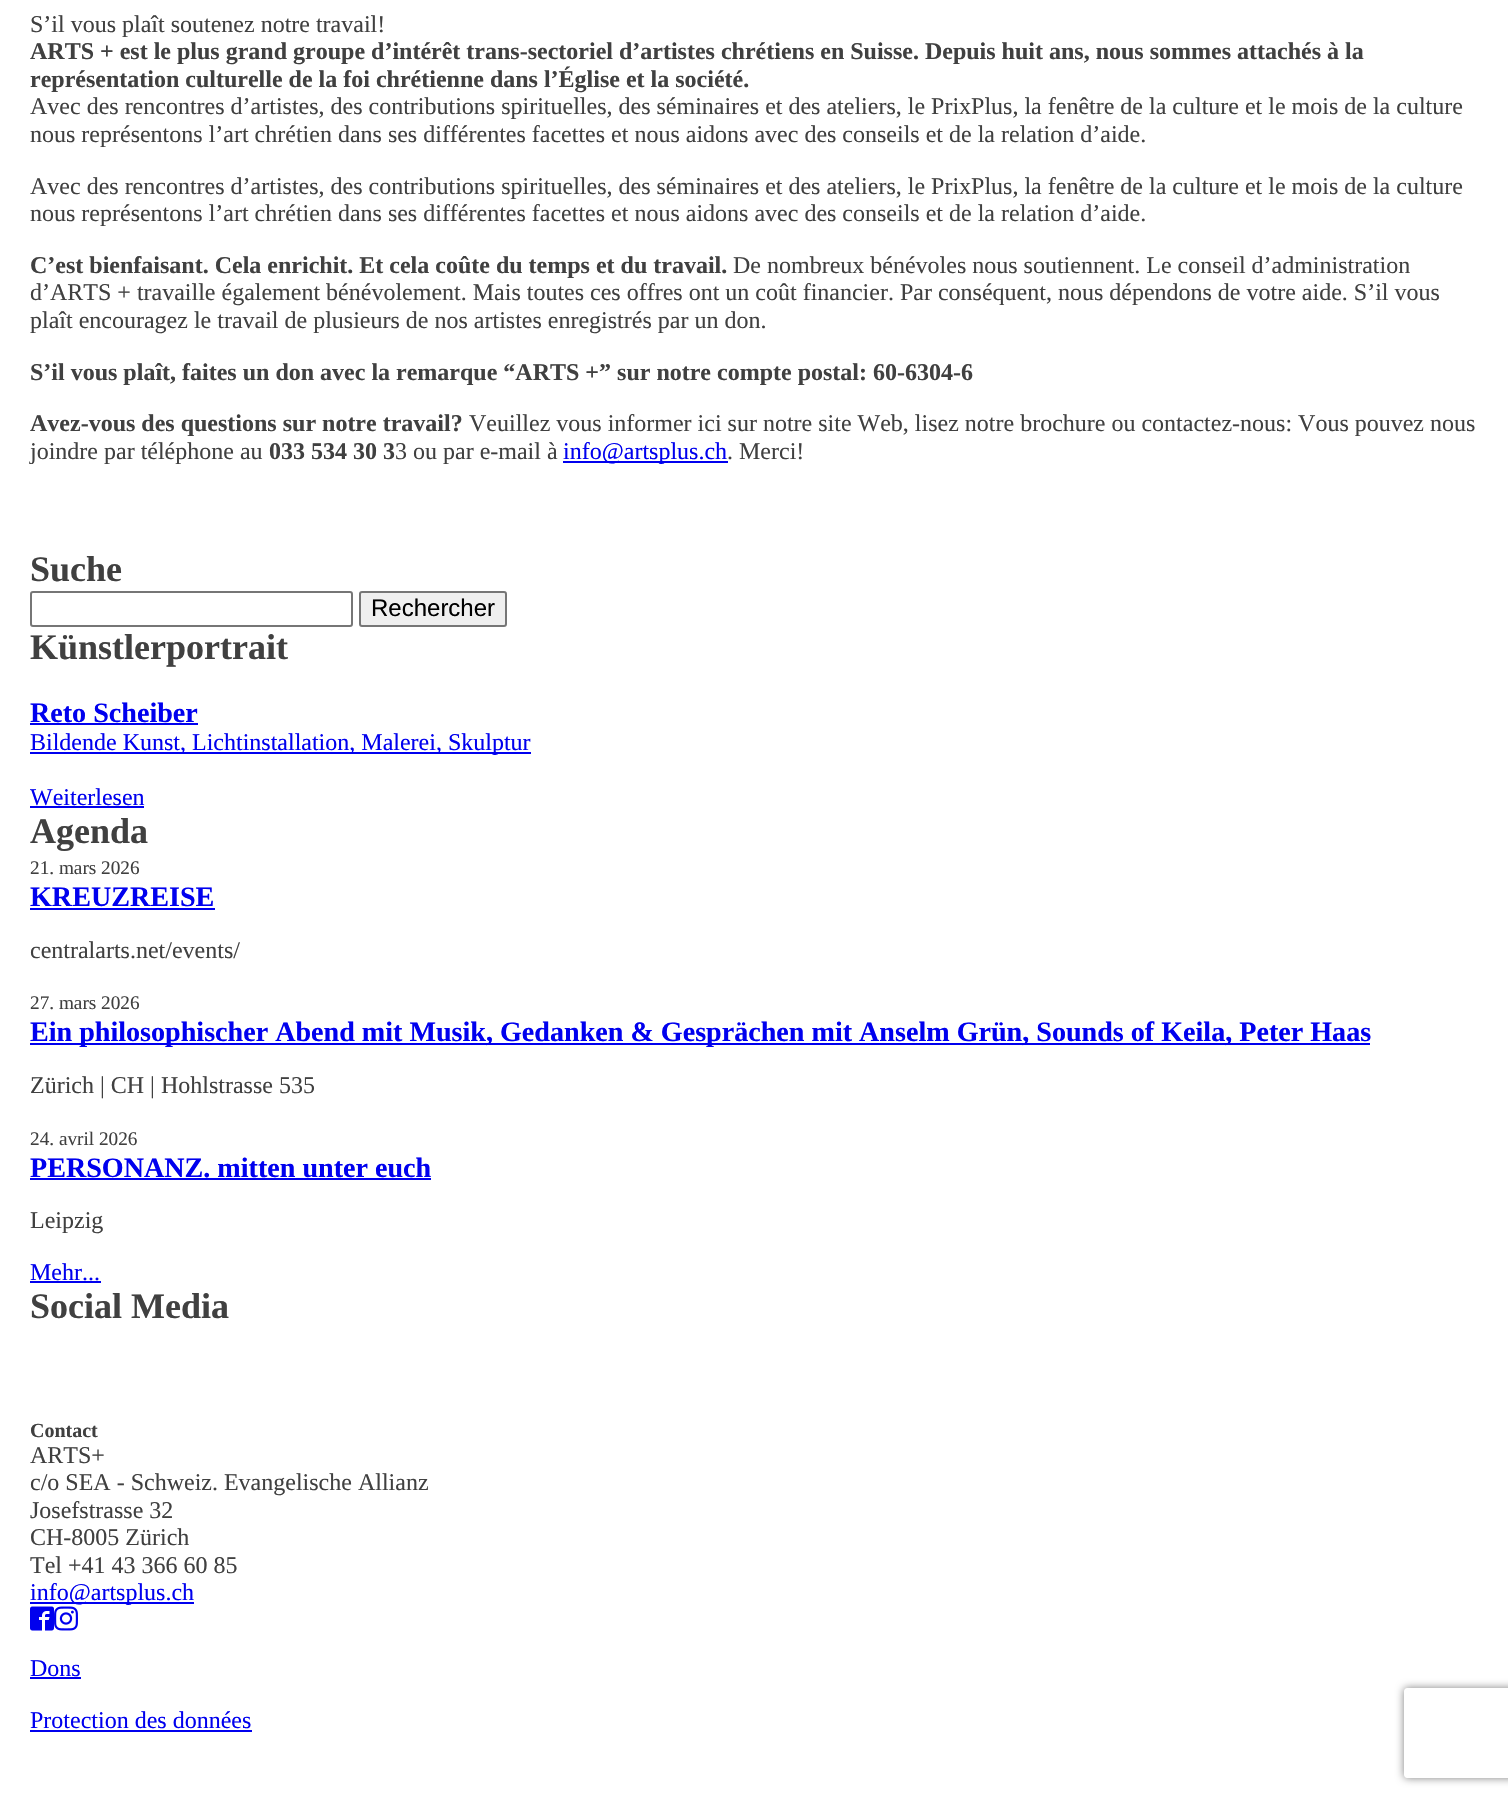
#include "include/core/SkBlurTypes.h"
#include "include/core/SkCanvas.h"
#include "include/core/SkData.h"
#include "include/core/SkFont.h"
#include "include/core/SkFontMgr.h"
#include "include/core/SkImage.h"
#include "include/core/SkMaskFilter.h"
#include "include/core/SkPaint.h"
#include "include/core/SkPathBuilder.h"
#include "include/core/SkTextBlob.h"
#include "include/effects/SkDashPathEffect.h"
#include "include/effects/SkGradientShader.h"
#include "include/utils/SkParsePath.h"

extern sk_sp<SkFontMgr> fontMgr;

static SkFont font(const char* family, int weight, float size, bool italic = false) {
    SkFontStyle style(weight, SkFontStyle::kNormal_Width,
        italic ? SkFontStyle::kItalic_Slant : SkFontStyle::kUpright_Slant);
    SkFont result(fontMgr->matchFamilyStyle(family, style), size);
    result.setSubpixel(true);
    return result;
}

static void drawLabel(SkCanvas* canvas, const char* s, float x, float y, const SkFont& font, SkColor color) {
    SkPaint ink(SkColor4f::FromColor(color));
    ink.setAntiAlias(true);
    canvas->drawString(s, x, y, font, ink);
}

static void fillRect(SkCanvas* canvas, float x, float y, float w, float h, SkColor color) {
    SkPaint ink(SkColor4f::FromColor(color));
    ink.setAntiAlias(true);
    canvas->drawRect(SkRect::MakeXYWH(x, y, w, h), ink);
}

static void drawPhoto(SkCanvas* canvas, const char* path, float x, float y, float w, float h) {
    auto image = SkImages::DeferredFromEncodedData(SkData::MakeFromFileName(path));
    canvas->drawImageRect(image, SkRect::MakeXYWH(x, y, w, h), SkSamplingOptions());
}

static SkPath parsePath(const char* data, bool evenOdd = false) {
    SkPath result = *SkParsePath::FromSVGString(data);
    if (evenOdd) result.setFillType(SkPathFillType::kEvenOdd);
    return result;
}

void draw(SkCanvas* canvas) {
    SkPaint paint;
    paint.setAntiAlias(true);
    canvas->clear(0xFFFFFFFF);
    SkFont font1 = font("Liberation Serif", 400, 24);
    drawLabel(canvas, "S’il vous plaît soutenez notre travail!", 30, 32, font1, 0xFF404040);
    SkFont font2 = font("Liberation Serif", 700, 24);
    drawLabel(canvas, "ARTS + est le plus grand groupe d’intérêt trans-sectoriel d’artistes chrétiens en Suisse. Depuis huit ans, nous sommes attachés à la", 30, 59, font2, 0xFF404040);
    drawLabel(canvas, "représentation culturelle de la foi chrétienne dans l’Église et la société.", 30, 87, font2, 0xFF404040);
    drawLabel(canvas, "Avec des rencontres d’artistes, des contributions spirituelles, des séminaires et des ateliers, le PrixPlus, la fenêtre de la culture et le mois de la culture", 30, 114, font1, 0xFF404040);
    drawLabel(canvas, "nous représentons l’art chrétien dans ses différentes facettes et nous aidons avec des conseils et de la relation d’aide.", 30, 142, font1, 0xFF404040);
    drawLabel(canvas, "Avec des rencontres d’artistes, des contributions spirituelles, des séminaires et des ateliers, le PrixPlus, la fenêtre de la culture et le mois de la culture", 30, 194, font1, 0xFF404040);
    drawLabel(canvas, "nous représentons l’art chrétien dans ses différentes facettes et nous aidons avec des conseils et de la relation d’aide.", 30, 221, font1, 0xFF404040);
    drawLabel(canvas, "C’est bienfaisant. Cela enrichit. Et cela coûte du temps et du travail.", 30, 273, font2, 0xFF404040);
    drawLabel(canvas, "De nombreux bénévoles nous soutiennent. Le conseil d’administration", 733, 273, font1, 0xFF404040);
    drawLabel(canvas, "d’ARTS + travaille également bénévolement. Mais toutes ces offres ont un coût financier. Par conséquent, nous dépendons de votre aide. S’il vous", 30, 300, font1, 0xFF404040);
    drawLabel(canvas, "plaît encouragez le travail de plusieurs de nos artistes enregistrés par un don.", 30, 328, font1, 0xFF404040);
    drawLabel(canvas, "S’il vous plaît, faites un don avec la remarque “ARTS +” sur notre compte postal: 60-6304-6", 30, 380, font2, 0xFF404040);
    drawLabel(canvas, "Avez-vous des questions sur notre travail?", 30, 431, font2, 0xFF404040);
    drawLabel(canvas, "Veuillez vous informer ici sur notre site Web, lisez notre brochure ou contactez-nous: Vous pouvez nous", 469, 431, font1, 0xFF404040);
    drawLabel(canvas, "joindre par téléphone au", 30, 459, font1, 0xFF404040);
    drawLabel(canvas, "033 534 30 3", 269, 459, font2, 0xFF404040);
    drawLabel(canvas, "3 ou par e-mail à", 395, 459, font1, 0xFF404040);
    fillRect(canvas, 563, 461, 165, 2, 0xFF0000EE);
    drawLabel(canvas, "info@artsplus.ch", 563, 459, font1, 0xFF0000EE);
    drawLabel(canvas, ". Merci!", 727, 459, font1, 0xFF404040);
    SkFont font3 = font("Liberation Serif", 700, 36);
    drawLabel(canvas, "Suche", 30, 581, font3, 0xFF404040);
    paint.setStroke(true);
    paint.setStrokeWidth(2);
    paint.setColor(0xFF767676);
    canvas->drawRoundRect(SkRect::MakeXYWH(31, 592, 321, 34), 2, 2, paint);
    paint.setStroke(false);
    paint.setColor(0xFFEFEFEF);
    canvas->drawRoundRect(SkRect::MakeXYWH(360, 592, 146, 34), 2, 2, paint);
    paint.setStroke(true);
    paint.setColor(0xFF767676);
    canvas->drawRoundRect(SkRect::MakeXYWH(360, 592, 146, 34), 2, 2, paint);
    SkFont font4 = font("Liberation Sans", 400, 24);
    drawLabel(canvas, "Rechercher", 371, 616, font4, 0xFF000000);
    drawLabel(canvas, "Künstlerportrait", 30, 659, font3, 0xFF404040);
    SkFont font5 = font("Liberation Serif", 700, 28.1f);
    drawLabel(canvas, "Reto Scheiber", 30, 722, font5, 0xFF0000EE);
    fillRect(canvas, 30, 723, 168, 2, 0xFF0000EE);
    fillRect(canvas, 30, 752, 501, 2, 0xFF0000EE);
    drawLabel(canvas, "Bildende Kunst, Lichtinstallation, Malerei, Skulptur", 30, 750, font1, 0xFF0000EE);
    drawLabel(canvas, "Weiterlesen", 30, 805, font1, 0xFF0000EE);
    fillRect(canvas, 30, 806, 114, 2, 0xFF0000EE);
    drawLabel(canvas, "Agenda", 30, 843, font3, 0xFF404040);
    SkFont font6 = font("Liberation Serif", 400, 19.25f);
    drawLabel(canvas, "21. mars 2026", 30, 874, font6, 0xFF404040);
    drawLabel(canvas, "KREUZREISE", 30, 906, font5, 0xFF0000EE);
    fillRect(canvas, 30, 908, 185, 2, 0xFF0000EE);
    drawLabel(canvas, "centralarts.net/events/", 30, 958, font1, 0xFF404040);
    drawLabel(canvas, "27. mars 2026", 30, 1009, font6, 0xFF404040);
    fillRect(canvas, 30, 1043, 1340, 2, 0xFF0000EE);
    drawLabel(canvas, "Ein philosophischer Abend mit Musik, Gedanken & Gesprächen mit Anselm Grün, Sounds of Keila, Peter Haas", 30, 1041, font5, 0xFF0000EE);
    drawLabel(canvas, "Zürich | CH | Hohlstrasse 535", 30, 1093, font1, 0xFF404040);
    drawLabel(canvas, "24. avril 2026", 30, 1145, font6, 0xFF404040);
    drawLabel(canvas, "PERSONANZ. mitten unter euch", 30, 1177, font5, 0xFF0000EE);
    fillRect(canvas, 30, 1178, 401, 2, 0xFF0000EE);
    drawLabel(canvas, "Leipzig", 30, 1228, font1, 0xFF404040);
    drawLabel(canvas, "Mehr...", 30, 1280, font1, 0xFF0000EE);
    fillRect(canvas, 30, 1281, 71, 2, 0xFF0000EE);
    drawLabel(canvas, "Social Media", 30, 1318, font3, 0xFF404040);
    SkFont font7 = font("Liberation Serif", 700, 20);
    drawLabel(canvas, "Contact", 30, 1437, font7, 0xFF404040);
    drawLabel(canvas, "ARTS+", 30, 1463, font1, 0xFF404040);
    drawLabel(canvas, "c/o SEA - Schweiz. Evangelische Allianz", 30, 1490, font1, 0xFF404040);
    drawLabel(canvas, "Josefstrasse 32", 30, 1518, font1, 0xFF404040);
    drawLabel(canvas, "CH-8005 Zürich", 30, 1545, font1, 0xFF404040);
    drawLabel(canvas, "Tel +41 43 366 60 85", 30, 1573, font1, 0xFF404040);
    fillRect(canvas, 30, 1602, 164, 2, 0xFF0000EE);
    drawLabel(canvas, "info@artsplus.ch", 30, 1600, font1, 0xFF0000EE);
    drawPhoto(canvas, "assets/img1.png", 30, 1606, 24, 25);
    drawPhoto(canvas, "assets/img2.png", 54, 1606, 24, 25);
    drawLabel(canvas, "Dons", 30, 1676, font1, 0xFF0000EE);
    fillRect(canvas, 30, 1677, 51, 2, 0xFF0000EE);
    drawLabel(canvas, "Protection des données", 30, 1728, font1, 0xFF0000EE);
    fillRect(canvas, 30, 1730, 222, 2, 0xFF0000EE);
    canvas->save();
    canvas->clipPath(parsePath("M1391 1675H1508V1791H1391ZM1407 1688H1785C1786.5 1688 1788 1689.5 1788 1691V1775C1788 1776.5 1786.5 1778 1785 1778H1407C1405.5 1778 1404 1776.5 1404 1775V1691C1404 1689.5 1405.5 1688 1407 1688Z", true), true);
    paint.setStroke(false);
    paint.setColor(0xFF808080);
    paint.setMaskFilter(SkMaskFilter::MakeBlur(kNormal_SkBlurStyle, 4));
    canvas->drawRoundRect(SkRect::MakeXYWH(1404, 1688, 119, 90), 3, 3, paint);
    paint.setMaskFilter(nullptr);
    canvas->restore();
}
